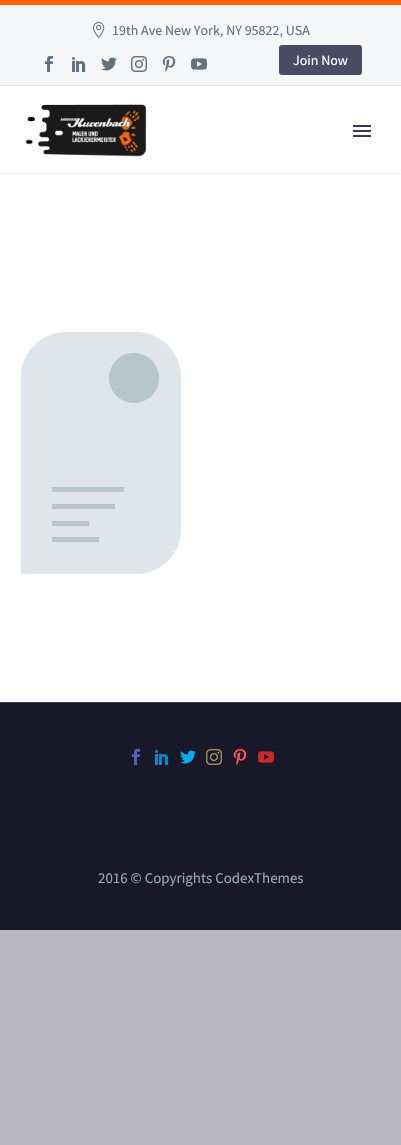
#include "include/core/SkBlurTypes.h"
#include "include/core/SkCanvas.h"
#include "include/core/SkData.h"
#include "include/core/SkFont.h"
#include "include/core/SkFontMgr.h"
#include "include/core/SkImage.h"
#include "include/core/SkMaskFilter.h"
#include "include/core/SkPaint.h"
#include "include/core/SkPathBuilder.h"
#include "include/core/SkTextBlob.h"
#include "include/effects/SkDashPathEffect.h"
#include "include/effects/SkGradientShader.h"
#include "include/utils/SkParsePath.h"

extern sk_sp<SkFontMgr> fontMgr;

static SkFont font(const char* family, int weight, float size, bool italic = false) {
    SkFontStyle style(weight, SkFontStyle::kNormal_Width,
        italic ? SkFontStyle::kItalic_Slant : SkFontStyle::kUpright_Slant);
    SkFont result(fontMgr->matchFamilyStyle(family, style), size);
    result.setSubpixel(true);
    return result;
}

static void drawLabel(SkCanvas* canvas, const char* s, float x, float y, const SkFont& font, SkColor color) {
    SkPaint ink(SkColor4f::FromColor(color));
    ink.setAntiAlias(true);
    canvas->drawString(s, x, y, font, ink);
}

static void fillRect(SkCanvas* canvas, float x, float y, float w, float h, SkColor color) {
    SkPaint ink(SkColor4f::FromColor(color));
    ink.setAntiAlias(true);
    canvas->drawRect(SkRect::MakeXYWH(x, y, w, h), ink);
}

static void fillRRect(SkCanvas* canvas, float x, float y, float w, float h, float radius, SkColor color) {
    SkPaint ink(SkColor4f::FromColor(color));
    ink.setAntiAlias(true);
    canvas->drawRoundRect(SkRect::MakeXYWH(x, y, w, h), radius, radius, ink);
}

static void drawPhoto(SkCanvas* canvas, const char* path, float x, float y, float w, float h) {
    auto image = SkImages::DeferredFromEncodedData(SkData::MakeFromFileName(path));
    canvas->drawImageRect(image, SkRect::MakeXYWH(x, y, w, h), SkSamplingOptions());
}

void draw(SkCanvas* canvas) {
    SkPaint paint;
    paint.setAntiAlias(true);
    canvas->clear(0xFFB9B8BE);
    fillRect(canvas, 0, 86, 401, 616, 0xFFFFFFFF);
    canvas->save();
    canvas->clipRect(SkRect::MakeXYWH(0, 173, 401, 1));
    paint.setColor(0x33384554);
    paint.setMaskFilter(SkMaskFilter::MakeBlur(kNormal_SkBlurStyle, 1));
    canvas->drawRect(SkRect::MakeXYWH(0, 0, 401, 173), paint);
    paint.setMaskFilter(nullptr);
    canvas->restore();
    fillRect(canvas, 0, 5, 401, 80, 0xFFF4F6F7);
    fillRect(canvas, 0, 0, 401, 5, 0xFFFF6600);
    fillRect(canvas, 0, 85, 401, 1, 0xFFDFE5E8);
    drawPhoto(canvas, "assets/img1.png", 93, 22, 12, 16);
    SkFont font1 = font("Source Sans Pro", 400, 14);
    drawLabel(canvas, "19th Ave New York, NY 95822, USA", 112, 35, font1, 0xFF5F727F);
    drawPhoto(canvas, "assets/img2.png", 45, 56, 8, 16);
    drawPhoto(canvas, "assets/img3.png", 72, 57, 14, 15);
    drawPhoto(canvas, "assets/img4.png", 101, 57, 16, 14);
    drawPhoto(canvas, "assets/img5.png", 131, 56, 16, 16);
    drawPhoto(canvas, "assets/img6.png", 162, 56, 14, 16);
    drawPhoto(canvas, "assets/img7.png", 191, 58, 16, 12);
    fillRRect(canvas, 279, 45, 83, 30, 3, 0xFF494C64);
    drawLabel(canvas, "Join Now", 293, 65, font1, 0xFFFFFFFF);
    drawPhoto(canvas, "assets/img8.png", 25, 104, 122, 53);
    fillRect(canvas, 353, 125, 18, 2, 0xFF3C3950);
    fillRect(canvas, 353, 130, 18, 2, 0xFF3C3950);
    fillRect(canvas, 353, 135, 18, 2, 0xFF3C3950);
    drawPhoto(canvas, "assets/img9.png", 21, 332, 160, 242);
    fillRect(canvas, 0, 703, 401, 227, 0xFF181828);
    fillRect(canvas, 0, 702, 401, 1, 0xFF313646);
    drawPhoto(canvas, "assets/img10.png", 132, 749, 8, 16);
    drawPhoto(canvas, "assets/img11.png", 155, 750, 14, 15);
    drawPhoto(canvas, "assets/img12.png", 180, 750, 16, 14);
    drawPhoto(canvas, "assets/img13.png", 206, 749, 16, 16);
    drawPhoto(canvas, "assets/img14.png", 233, 749, 14, 16);
    drawPhoto(canvas, "assets/img15.png", 258, 751, 16, 12);
    SkFont font2 = font("Source Sans Pro", 400, 14.9f);
    drawLabel(canvas, "2016 © Copyrights CodexThemes", 98, 883, font2, 0xFF99A9B5);
}
